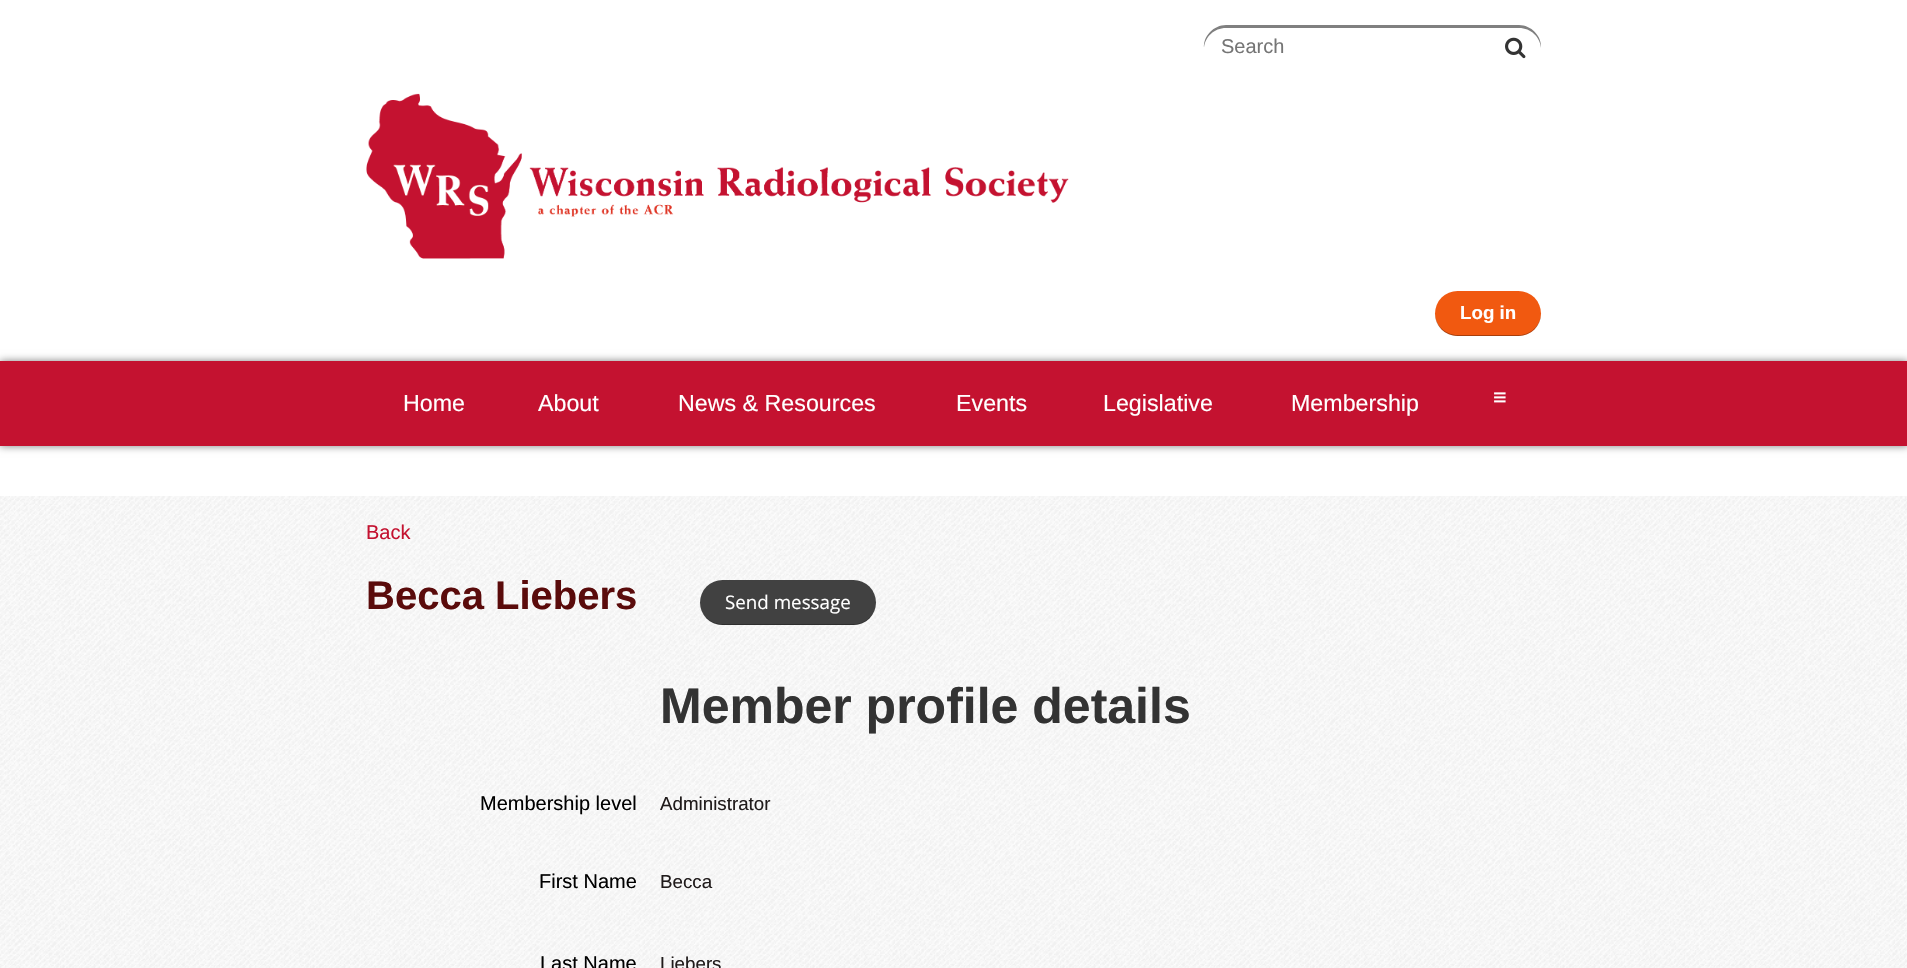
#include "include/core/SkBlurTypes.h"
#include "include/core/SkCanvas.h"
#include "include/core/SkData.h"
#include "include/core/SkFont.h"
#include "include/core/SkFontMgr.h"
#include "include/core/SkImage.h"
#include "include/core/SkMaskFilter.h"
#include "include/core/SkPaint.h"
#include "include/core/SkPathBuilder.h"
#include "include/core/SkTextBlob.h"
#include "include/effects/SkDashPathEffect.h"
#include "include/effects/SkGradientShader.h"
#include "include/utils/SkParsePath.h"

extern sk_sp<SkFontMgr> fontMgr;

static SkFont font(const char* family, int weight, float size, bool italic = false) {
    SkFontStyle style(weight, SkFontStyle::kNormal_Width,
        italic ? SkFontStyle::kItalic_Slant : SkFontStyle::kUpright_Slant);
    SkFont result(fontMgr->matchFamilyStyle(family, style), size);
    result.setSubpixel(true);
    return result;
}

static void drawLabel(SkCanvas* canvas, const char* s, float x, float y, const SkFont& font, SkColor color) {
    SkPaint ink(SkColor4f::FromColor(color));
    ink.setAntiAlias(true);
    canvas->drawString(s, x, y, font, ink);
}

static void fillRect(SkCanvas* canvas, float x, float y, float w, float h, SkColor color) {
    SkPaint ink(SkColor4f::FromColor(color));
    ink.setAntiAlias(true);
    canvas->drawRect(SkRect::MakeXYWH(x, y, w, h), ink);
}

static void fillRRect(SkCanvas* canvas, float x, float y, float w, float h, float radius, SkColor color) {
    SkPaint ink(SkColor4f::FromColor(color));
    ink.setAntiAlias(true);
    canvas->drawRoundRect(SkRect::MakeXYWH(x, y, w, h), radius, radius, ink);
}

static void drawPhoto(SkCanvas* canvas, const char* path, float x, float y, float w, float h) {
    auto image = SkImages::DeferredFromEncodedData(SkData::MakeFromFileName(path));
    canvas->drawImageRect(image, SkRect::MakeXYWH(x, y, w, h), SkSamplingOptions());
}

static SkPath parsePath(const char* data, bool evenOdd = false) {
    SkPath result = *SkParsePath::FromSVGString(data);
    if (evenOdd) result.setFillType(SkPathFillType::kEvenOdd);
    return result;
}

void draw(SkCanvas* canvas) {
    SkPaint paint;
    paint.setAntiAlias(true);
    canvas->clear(0xFFFFFFFF);
    drawPhoto(canvas, "assets/img1.png", 0, 496, 1907, 472);
    paint.setColor(0xFF808080);
    canvas->drawPath(parsePath("M1226 28H1519C1531 28 1540 37 1541 48C1542 36 1531 25 1519 25H1226C1214 25 1203 36 1204 48C1205 37 1214 28 1226 28Z"), paint);
    SkFont font1 = font("Liberation Sans", 400, 20);
    drawLabel(canvas, "Search", 1221, 53, font1, 0xFF757575);
    drawPhoto(canvas, "assets/img2.png", 1505, 37, 21, 22);
    drawPhoto(canvas, "assets/img3.png", 366, 93, 703, 166);
    fillRRect(canvas, 1435, 291, 106, 45, 22.5f, 0xFFF15910);
    paint.setColor(0x4D000000);
    canvas->drawPath(parsePath("M1435 313V314C1435 326 1445 336 1458 336H1518C1531 336 1541 326 1541 314V313C1541 325 1531 335 1519 335H1458C1445 335 1435 325 1435 313Z"), paint);
    SkFont font2 = font("Liberation Sans", 700, 18.75f);
    drawLabel(canvas, "Log in", 1460, 319, font2, 0xFFFFFFFF);
    paint.setColor(0x80000000);
    paint.setMaskFilter(SkMaskFilter::MakeBlur(kNormal_SkBlurStyle, 4));
    canvas->drawRect(SkRect::MakeXYWH(0, 361, 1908, 85), paint);
    paint.setMaskFilter(nullptr);
    fillRect(canvas, 0, 361, 1907, 85, 0xFFC41230);
    SkFont font3 = font("Liberation Sans", 400, 23.25f);
    drawLabel(canvas, "Home", 403, 411, font3, 0xFFFFFFFF);
    drawLabel(canvas, "About", 538, 411, font3, 0xFFFFFFFF);
    drawLabel(canvas, "News & Resources", 678, 411, font3, 0xFFFFFFFF);
    drawLabel(canvas, "Events", 956, 411, font3, 0xFFFFFFFF);
    drawLabel(canvas, "Legislative", 1103, 411, font3, 0xFFFFFFFF);
    drawLabel(canvas, "Membership", 1291, 411, font3, 0xFFFFFFFF);
    drawLabel(canvas, "≡", 1493, 405, font3, 0xFFFFFFFF);
    drawLabel(canvas, "Back", 366, 539, font1, 0xFFC41230);
    SkFont font4 = font("Liberation Sans", 700, 40);
    drawLabel(canvas, "Becca Liebers", 366, 609, font4, 0xFF5A0B0B);
    fillRRect(canvas, 700, 580, 176, 45, 22.5f, 0xFF414141);
    paint.setColor(0x4D000000);
    canvas->drawPath(parsePath("M700 602C700 615 710 625 722 625H854C866 625 876 615 876 602C876 614 866 624 854 624H722C710 624 700 614 700 602Z"), paint);
    SkFont font5 = font("Open Sans", 400, 18.75f);
    drawLabel(canvas, "Send message", 725, 609, font5, 0xFFFFFFFF);
    SkFont font6 = font("Liberation Sans", 700, 50);
    drawLabel(canvas, "Member profile details", 660, 723, font6, 0xFF333333);
    drawLabel(canvas, "Membership level", 480, 810, font1, 0xFF000000);
    SkFont font7 = font("Liberation Sans", 400, 18.75f);
    drawLabel(canvas, "Administrator", 660, 810, font7, 0xFF201B1B);
    drawLabel(canvas, "First Name", 539, 888, font1, 0xFF000000);
    drawLabel(canvas, "Becca", 660, 888, font7, 0xFF201B1B);
    drawLabel(canvas, "Last Name", 540, 970, font1, 0xFF000000);
    drawLabel(canvas, "Liebers", 660, 970, font7, 0xFF201B1B);
}
